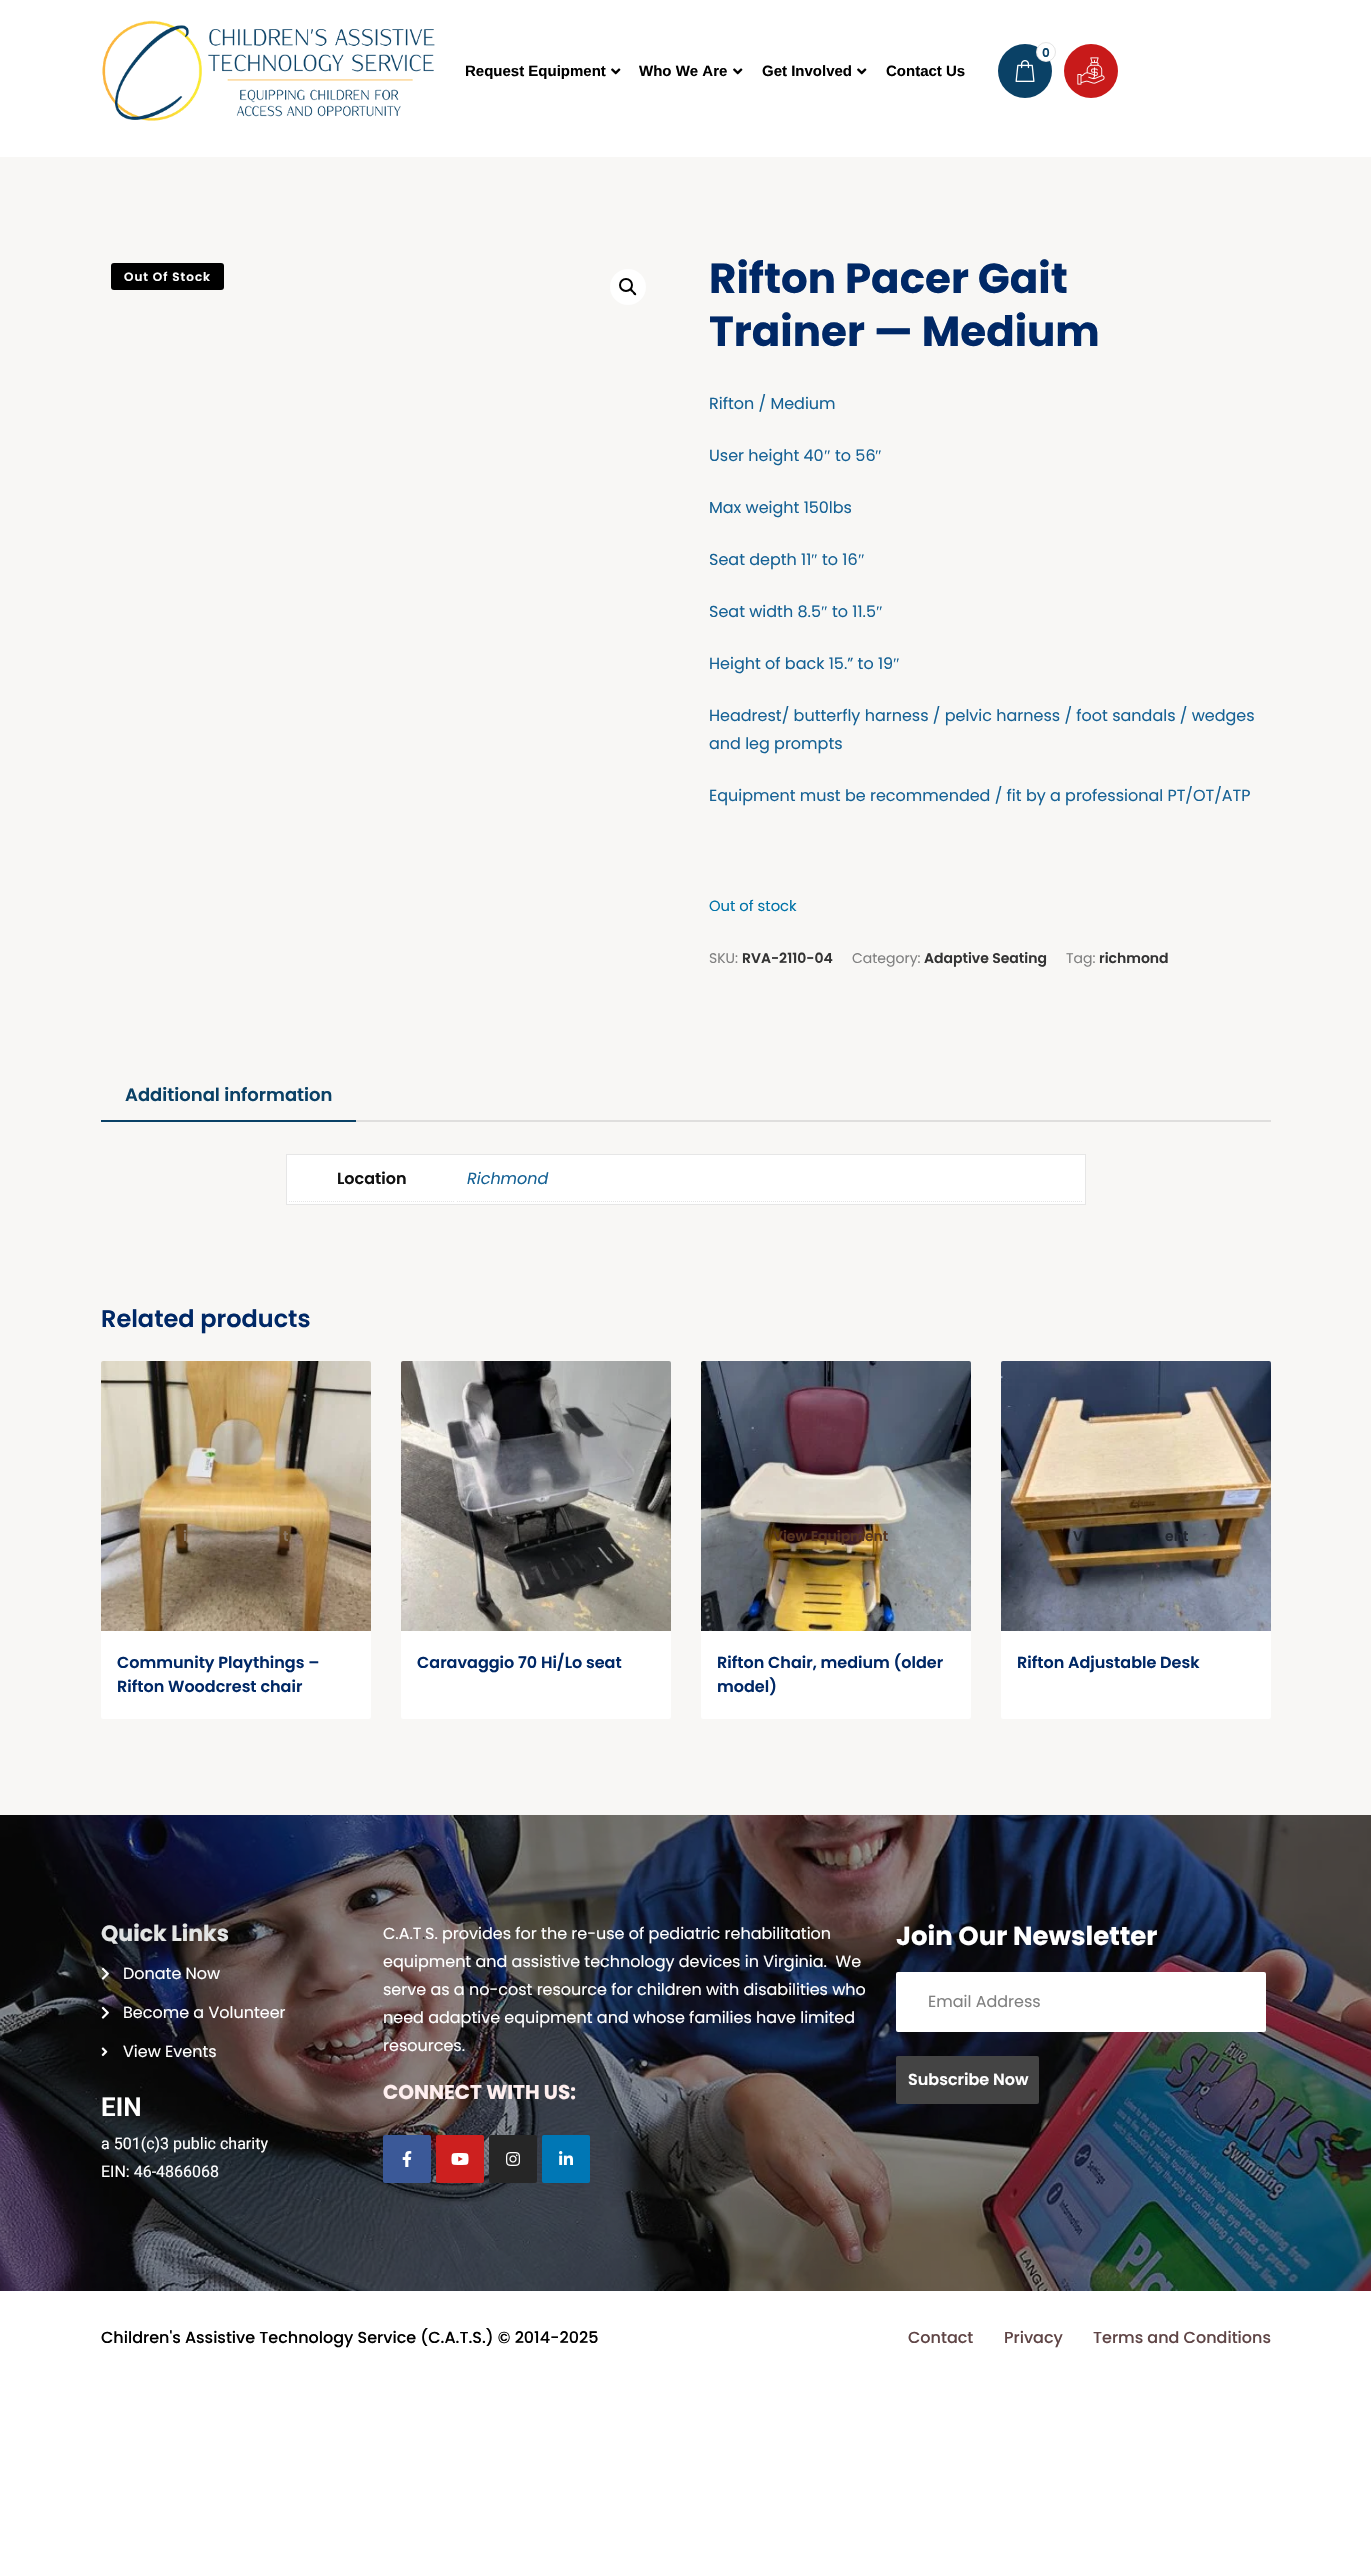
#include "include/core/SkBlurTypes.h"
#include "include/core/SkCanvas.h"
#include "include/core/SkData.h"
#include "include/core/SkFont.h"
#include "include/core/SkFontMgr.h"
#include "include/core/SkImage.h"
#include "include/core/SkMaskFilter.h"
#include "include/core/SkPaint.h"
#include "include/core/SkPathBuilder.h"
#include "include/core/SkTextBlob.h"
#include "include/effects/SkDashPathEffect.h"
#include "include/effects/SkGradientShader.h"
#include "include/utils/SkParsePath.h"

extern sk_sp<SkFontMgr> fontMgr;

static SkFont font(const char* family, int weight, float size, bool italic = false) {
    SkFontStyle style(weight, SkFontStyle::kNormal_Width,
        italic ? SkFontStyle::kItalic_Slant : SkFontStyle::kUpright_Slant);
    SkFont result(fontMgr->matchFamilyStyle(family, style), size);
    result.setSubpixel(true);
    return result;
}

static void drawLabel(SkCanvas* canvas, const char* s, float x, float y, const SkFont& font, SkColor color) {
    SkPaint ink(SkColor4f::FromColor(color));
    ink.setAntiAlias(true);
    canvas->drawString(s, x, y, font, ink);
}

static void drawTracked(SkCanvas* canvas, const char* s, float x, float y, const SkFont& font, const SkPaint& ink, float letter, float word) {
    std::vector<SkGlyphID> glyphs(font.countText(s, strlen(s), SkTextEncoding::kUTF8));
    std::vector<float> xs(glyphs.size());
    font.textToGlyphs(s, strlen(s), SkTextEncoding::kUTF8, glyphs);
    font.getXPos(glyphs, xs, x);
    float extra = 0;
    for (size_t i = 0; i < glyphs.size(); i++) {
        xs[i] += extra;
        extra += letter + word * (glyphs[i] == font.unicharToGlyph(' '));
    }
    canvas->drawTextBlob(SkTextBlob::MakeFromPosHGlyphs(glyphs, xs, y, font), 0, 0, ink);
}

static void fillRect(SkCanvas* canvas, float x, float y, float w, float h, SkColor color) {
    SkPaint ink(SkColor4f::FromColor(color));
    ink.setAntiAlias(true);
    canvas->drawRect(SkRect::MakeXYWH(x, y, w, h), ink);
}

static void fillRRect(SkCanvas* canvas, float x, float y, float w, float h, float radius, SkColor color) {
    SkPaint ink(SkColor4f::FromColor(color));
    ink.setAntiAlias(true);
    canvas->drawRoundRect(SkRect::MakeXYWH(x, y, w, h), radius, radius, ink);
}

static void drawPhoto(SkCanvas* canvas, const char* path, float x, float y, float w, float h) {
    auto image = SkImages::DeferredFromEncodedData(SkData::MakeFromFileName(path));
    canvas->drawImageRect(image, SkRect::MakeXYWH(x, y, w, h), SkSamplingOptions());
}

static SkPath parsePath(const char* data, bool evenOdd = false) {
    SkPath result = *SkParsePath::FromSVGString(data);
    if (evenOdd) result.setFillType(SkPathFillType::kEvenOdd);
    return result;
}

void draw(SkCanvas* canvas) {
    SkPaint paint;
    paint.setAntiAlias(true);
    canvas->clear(0xFFFFFFFF);
    drawPhoto(canvas, "assets/img1.png", 102, 20, 333, 101);
    paint.setColor(0xFF0A4166);
    canvas->drawCircle(1025, 71, 27, paint);
    paint.setColor(0xFFFFFFFF);
    canvas->drawCircle(1046, 52, 10, paint);
    paint.setStroke(true);
    paint.setStrokeWidth(1);
    paint.setColor(0x1A000000);
    canvas->drawCircle(1046, 52, 9.5f, paint);
    SkFont font1 = font("Poppins", 600, 12);
    drawLabel(canvas, "0", 1042, 57, font1, 0xFF0A4166);
    drawPhoto(canvas, "assets/img2.png", 1015, 60, 20, 22);
    paint.setStroke(false);
    paint.setColor(0xFFC81A1A);
    canvas->drawCircle(1091, 71, 27, paint);
    drawPhoto(canvas, "assets/img3.png", 1077, 57, 28, 28);
    SkFont font2 = font("Liberation Sans", 700, 15);
    drawLabel(canvas, "Request Equipment", 465, 76, font2, 0xFF000000);
    drawPhoto(canvas, "assets/img4.png", 611, 68, 10, 7);
    drawLabel(canvas, "Who We Are", 639, 76, font2, 0xFF000000);
    drawPhoto(canvas, "assets/img4.png", 733, 68, 10, 7);
    drawLabel(canvas, "Get Involved", 762, 76, font2, 0xFF000000);
    drawPhoto(canvas, "assets/img4.png", 857, 68, 10, 7);
    drawLabel(canvas, "Contact Us", 886, 76, font2, 0xFF000000);
    fillRect(canvas, 0, 157, 1371, 1658, 0xFFF8F7F5);
    fillRRect(canvas, 111, 263, 113, 27, 3, 0xFF000000);
    paint.setColor(0xFFFFFFFF);
    drawTracked(canvas, "Out Of Stock", 124, 281, font1, paint, 1, 0);
    canvas->drawCircle(628, 287, 18, paint);
    paint.setStroke(true);
    paint.setStrokeWidth(2);
    paint.setColor(0xFF000000);
    canvas->drawCircle(626, 285, 6, paint);
    paint.setStroke(false);
    canvas->drawPath(parsePath("M630.5 289C631.5 288 633 290.5 634 291.5C634.5 292 637 293.5 636 295C634.5 296 633 293.5 632.5 292.5C632 292 629 290.5 630.5 289Z"), paint);
    SkFont font3 = font("Poppins", 700, 42);
    drawLabel(canvas, "Rifton Pacer Gait", 709, 293, font3, 0xFF002866);
    drawLabel(canvas, "Trainer — Medium", 709, 346, font3, 0xFF002866);
    SkFont font4 = font("Poppins", 400, 16);
    drawLabel(canvas, "Rifton / Medium", 709, 409, font4, 0xFF166295);
    drawLabel(canvas, "User height 40", 709, 461, font4, 0xFF166295);
    SkFont font5 = font("Liberation Serif", 400, 16);
    drawLabel(canvas, "″", 824, 461, font5, 0xFF166295);
    drawLabel(canvas, "to 56", 835, 461, font4, 0xFF166295);
    drawLabel(canvas, "″", 875, 461, font5, 0xFF166295);
    drawLabel(canvas, "Max weight 150lbs", 709, 513, font4, 0xFF166295);
    drawLabel(canvas, "Seat depth 11", 709, 565, font4, 0xFF166295);
    drawLabel(canvas, "″", 811, 565, font5, 0xFF166295);
    drawLabel(canvas, "to 16", 822, 565, font4, 0xFF166295);
    drawLabel(canvas, "″", 858, 565, font5, 0xFF166295);
    drawLabel(canvas, "Seat width 8.5", 709, 617, font4, 0xFF166295);
    drawLabel(canvas, "″", 821, 617, font5, 0xFF166295);
    drawLabel(canvas, "to 11.5", 832, 617, font4, 0xFF166295);
    drawLabel(canvas, "″", 876, 617, font5, 0xFF166295);
    drawLabel(canvas, "Height of back 15.” to 19", 709, 669, font4, 0xFF166295);
    drawLabel(canvas, "″", 893, 669, font5, 0xFF166295);
    drawLabel(canvas, "Headrest/ butterfly harness / pelvic harness / foot sandals / wedges", 709, 721, font4, 0xFF166295);
    drawLabel(canvas, "and leg prompts", 709, 749, font4, 0xFF166295);
    drawLabel(canvas, "Equipment must be recommended / fit by a professional PT/OT/ATP", 709, 801, font4, 0xFF166295);
    SkFont font6 = font("Poppins", 400, 14.75f);
    drawLabel(canvas, "Out of stock", 709, 911, font6, 0xFF0073A8);
    SkFont font7 = font("Poppins", 400, 14);
    drawLabel(canvas, "SKU:", 709, 963, font7, 0xFF808080);
    SkFont font8 = font("Poppins", 600, 14);
    drawLabel(canvas, "RVA-2110-04", 742, 963, font8, 0xFF333333);
    drawLabel(canvas, "Category:", 852, 963, font7, 0xFF808080);
    drawLabel(canvas, "Adaptive Seating", 924, 963, font8, 0xFF333333);
    drawLabel(canvas, "Tag:", 1066, 963, font7, 0xFF808080);
    drawLabel(canvas, "richmond", 1099, 963, font8, 0xFF333333);
    SkFont font9 = font("Poppins", 600, 18);
    drawLabel(canvas, "Additional information", 125, 1101, font9, 0xFF0A4166);
    fillRect(canvas, 101, 1120, 255, 2, 0xFF0A4166);
    fillRect(canvas, 356, 1120, 915, 2, 0xFFDFDEDD);
    paint.setColor(0xFFFFFFFF);
    canvas->drawRect(SkRect::MakeXYWH(286.5f, 1154.5f, 799, 50), paint);
    paint.setStroke(true);
    paint.setStrokeWidth(1);
    paint.setColor(0xFFE6E6E6);
    canvas->drawRect(SkRect::MakeXYWH(286.5f, 1154.5f, 799, 50), paint);
    paint.setPathEffect(SkDashPathEffect::Make({{1, 1}}, 0));
    canvas->drawPath(parsePath("M289 1201.5H455"), paint);
    paint.setPathEffect(nullptr);
    SkFont font10 = font("Poppins", 600, 16);
    drawLabel(canvas, "Location", 337, 1184, font10, 0xFF111111);
    paint.setPathEffect(SkDashPathEffect::Make({{1, 1}}, 0));
    canvas->drawPath(parsePath("M457 1201.5H1083"), paint);
    paint.setPathEffect(nullptr);
    SkFont font11 = font("Poppins", 400, 16, true);
    drawLabel(canvas, "Richmond", 467, 1184, font11, 0xFF166295);
    SkFont font12 = font("Poppins", 600, 24);
    drawLabel(canvas, "Related products", 101, 1327, font12, 0xFF002866);
    fillRRect(canvas, 101, 1361, 270, 358, 2, 0xFFFFFFFF);
    drawPhoto(canvas, "assets/img5.png", 101, 1361, 270, 270);
    drawLabel(canvas, "i", 183, 1541, font8, 0xFF8B7865);
    drawLabel(canvas, "t", 283, 1541, font8, 0xFF8B7865);
    drawLabel(canvas, "Community Playthings –", 117, 1668, font10, 0xFF002866);
    drawLabel(canvas, "Rifton Woodcrest chair", 117, 1692, font10, 0xFF002866);
    fillRRect(canvas, 401, 1361, 270, 358, 2, 0xFFFFFFFF);
    drawPhoto(canvas, "assets/img6.png", 401, 1361, 270, 270);
    drawLabel(canvas, "Caravaggio 70 Hi/Lo seat", 417, 1668, font10, 0xFF002866);
    fillRRect(canvas, 701, 1361, 270, 358, 2, 0xFFFFFFFF);
    drawPhoto(canvas, "assets/img7.png", 701, 1361, 270, 270);
    drawLabel(canvas, "View Equipment", 773, 1541, font8, 0xFF573521);
    drawLabel(canvas, "Rifton Chair, medium (older", 717, 1668, font10, 0xFF002866);
    drawLabel(canvas, "model)", 717, 1692, font10, 0xFF002866);
    fillRRect(canvas, 1001, 1361, 270, 358, 2, 0xFFFFFFFF);
    drawPhoto(canvas, "assets/img8.png", 1001, 1361, 270, 270);
    drawLabel(canvas, "V", 1073, 1541, font8, 0xFF222730);
    drawLabel(canvas, "ent", 1165, 1541, font8, 0xFF222730);
    drawLabel(canvas, "Rifton Adjustable Desk", 1017, 1668, font10, 0xFF002866);
    drawPhoto(canvas, "assets/img9.png", 0, 1815, 1371, 476);
    SkFont font13 = font("Poppins", 700, 22);
    drawLabel(canvas, "Quick Links", 101, 1941, font13, 0xFFE2E4E4);
    drawPhoto(canvas, "assets/img10.png", 101, 1967, 8, 13);
    drawLabel(canvas, "Donate Now", 123, 1979, font4, 0xFFFFFFFF);
    drawPhoto(canvas, "assets/img11.png", 101, 2006, 8, 13);
    drawLabel(canvas, "Become a Volunteer", 123, 2018, font4, 0xFFFFFFFF);
    drawPhoto(canvas, "assets/img12.png", 101, 2047, 7, 10);
    drawLabel(canvas, "View Events", 123, 2057, font4, 0xFFFFFFFF);
    SkFont font14 = font("Roboto", 600, 26);
    drawLabel(canvas, "EIN", 101, 2116, font14, 0xFFFFFFFF);
    SkFont font15 = font("Roboto", 400, 16);
    drawLabel(canvas, "a 501(c)3 public charity", 101, 2149, font15, 0xFFFFFFFF);
    drawLabel(canvas, "EIN: 46-4866068", 101, 2177, font15, 0xFFFFFFFF);
    drawLabel(canvas, "C.A.T", 383, 1939, font4, 0xFFFFFFFF);
    drawLabel(canvas, ".", 422, 1939, font4, 0xFF333333);
    drawLabel(canvas, "S. provides for the re-use of pediatric rehabilitation", 425, 1939, font4, 0xFFFFFFFF);
    drawLabel(canvas, "equipment and assistive technology devices in Virginia.  We", 383, 1967, font4, 0xFFFFFFFF);
    drawLabel(canvas, "serve as a no-cost resource for children with disabilities who", 383, 1995, font4, 0xFFFFFFFF);
    drawLabel(canvas, "need adaptive equipment and whose families have limited", 383, 2023, font4, 0xFFFFFFFF);
    drawLabel(canvas, "resources.", 383, 2051, font4, 0xFFFFFFFF);
    SkFont font16 = font("Poppins", 700, 20);
    drawLabel(canvas, "CONNECT WITH US:", 383, 2099, font16, 0xFFFFEFEF);
    fillRRect(canvas, 383, 2135, 48, 48, 2, 0xFF3B5998);
    drawPhoto(canvas, "assets/img13.png", 402, 2151, 10, 16);
    fillRRect(canvas, 436, 2135, 48, 48, 2, 0xFFCD201F);
    drawPhoto(canvas, "assets/img14.png", 451, 2153, 18, 12);
    fillRRect(canvas, 489, 2135, 48, 48, 2, 0xFF262626);
    drawPhoto(canvas, "assets/img15.png", 506, 2152, 14, 14);
    fillRRect(canvas, 542, 2135, 48, 48, 2, 0xFF0077B5);
    drawPhoto(canvas, "assets/img16.png", 559, 2151, 14, 14);
    SkFont font17 = font("Poppins", 700, 26);
    drawLabel(canvas, "Join Our Newsletter", 896, 1945, font17, 0xFFFFFFFF);
    fillRRect(canvas, 896, 1972, 370, 60, 2, 0xFFFFFFFF);
    drawLabel(canvas, "Email Address", 928, 2007, font4, 0xFF808080);
    fillRRect(canvas, 896, 2056, 143, 48, 2, 0xFF444444);
    drawLabel(canvas, "Subscribe Now", 908, 2085, font10, 0xFFFFFFFF);
    SkFont font18 = font("Poppins", 500, 16);
    drawLabel(canvas, "Children's Assistive Technology Service (C.A.T.S.) © 2014-2025", 101, 2343, font18, 0xFF000000);
    drawLabel(canvas, "Contact", 908, 2343, font18, 0xFF5F4546);
    drawLabel(canvas, "Privacy", 1004, 2343, font18, 0xFF5F4546);
    drawLabel(canvas, "Terms and Conditions", 1093, 2343, font18, 0xFF5F4546);
}
